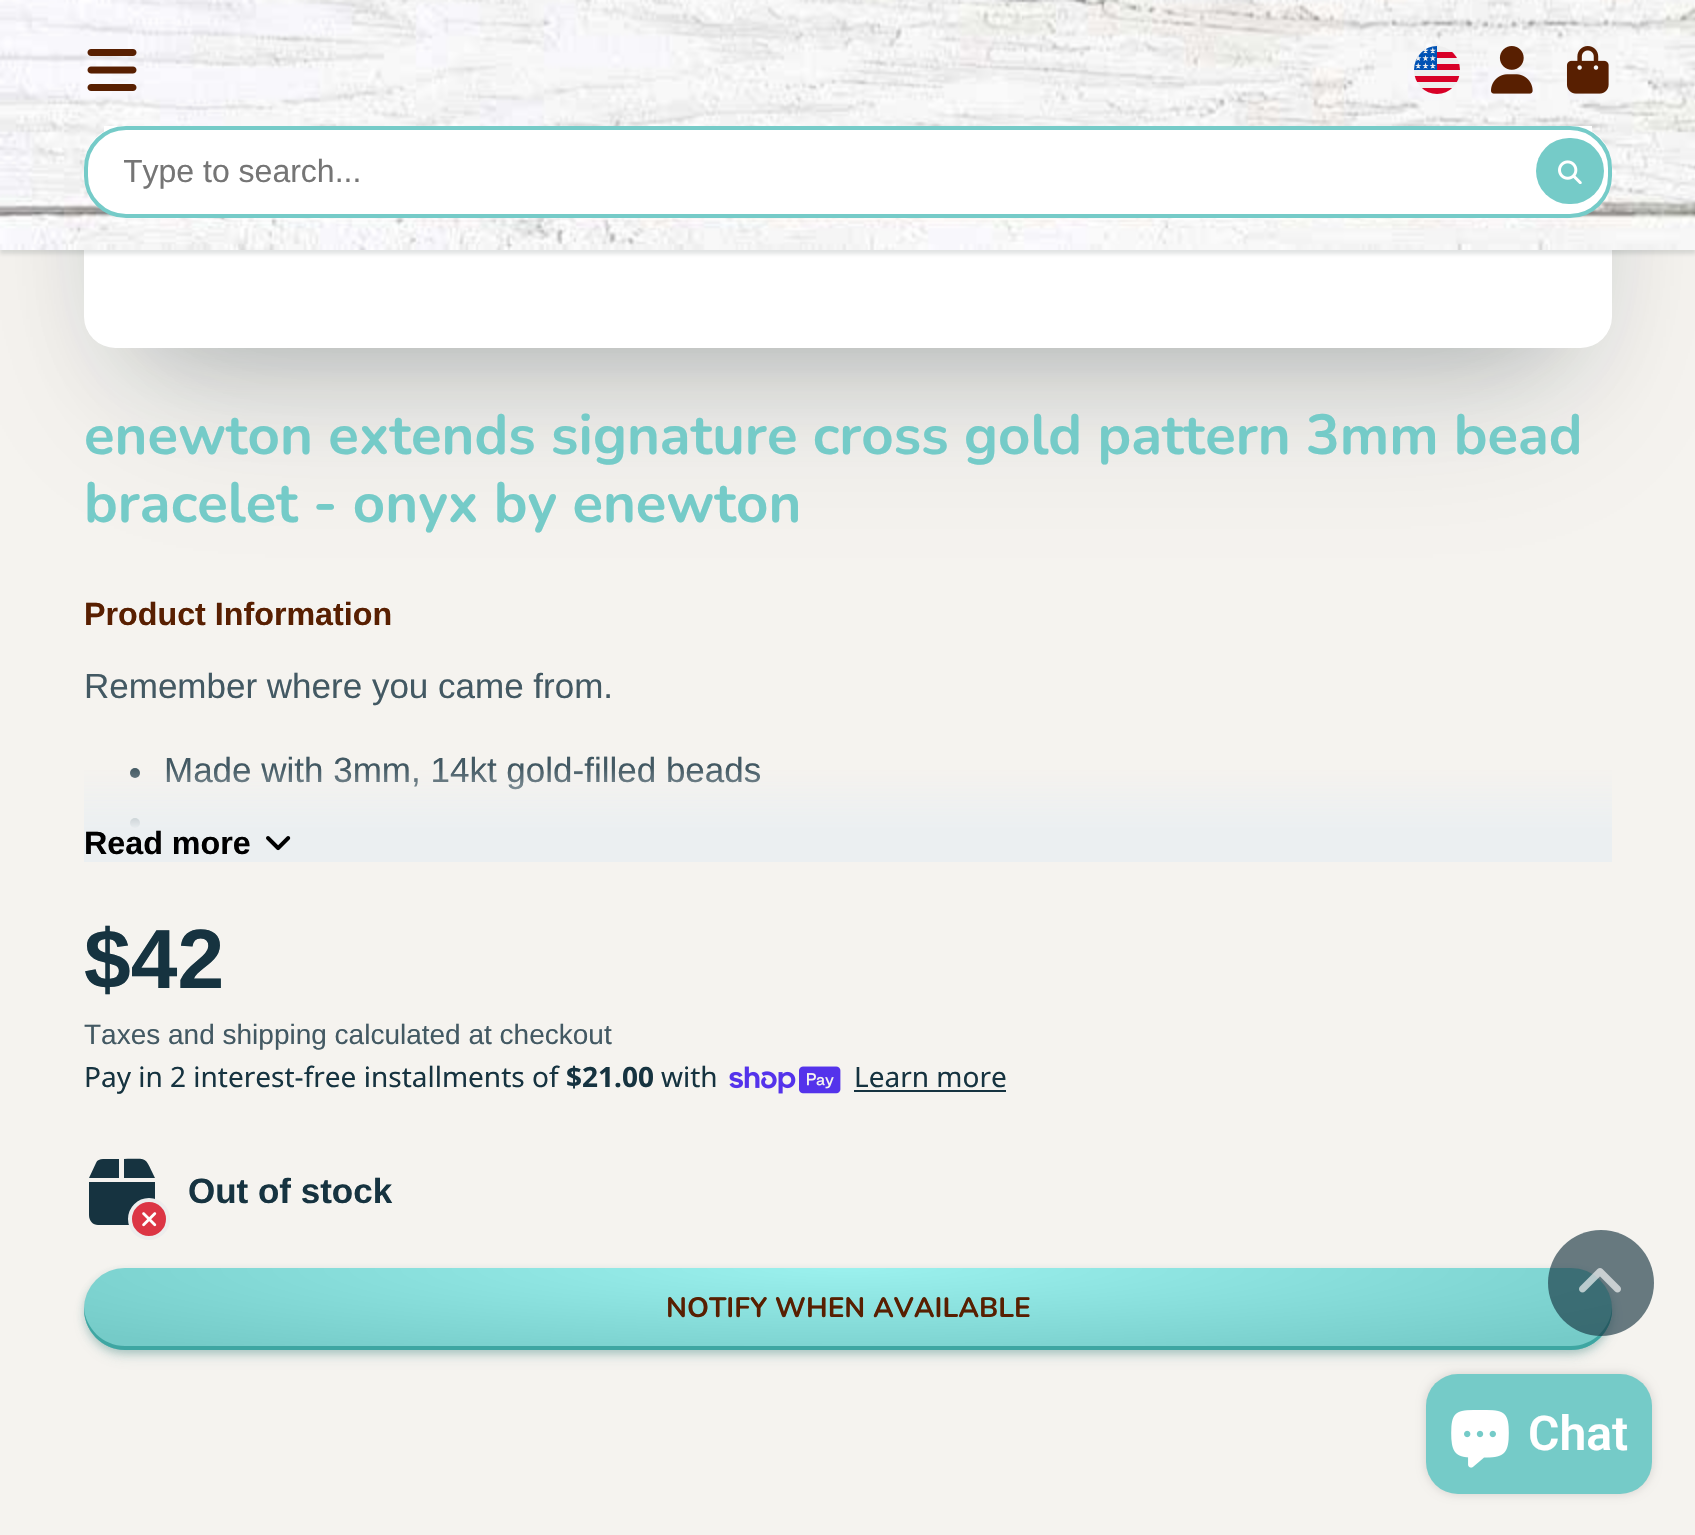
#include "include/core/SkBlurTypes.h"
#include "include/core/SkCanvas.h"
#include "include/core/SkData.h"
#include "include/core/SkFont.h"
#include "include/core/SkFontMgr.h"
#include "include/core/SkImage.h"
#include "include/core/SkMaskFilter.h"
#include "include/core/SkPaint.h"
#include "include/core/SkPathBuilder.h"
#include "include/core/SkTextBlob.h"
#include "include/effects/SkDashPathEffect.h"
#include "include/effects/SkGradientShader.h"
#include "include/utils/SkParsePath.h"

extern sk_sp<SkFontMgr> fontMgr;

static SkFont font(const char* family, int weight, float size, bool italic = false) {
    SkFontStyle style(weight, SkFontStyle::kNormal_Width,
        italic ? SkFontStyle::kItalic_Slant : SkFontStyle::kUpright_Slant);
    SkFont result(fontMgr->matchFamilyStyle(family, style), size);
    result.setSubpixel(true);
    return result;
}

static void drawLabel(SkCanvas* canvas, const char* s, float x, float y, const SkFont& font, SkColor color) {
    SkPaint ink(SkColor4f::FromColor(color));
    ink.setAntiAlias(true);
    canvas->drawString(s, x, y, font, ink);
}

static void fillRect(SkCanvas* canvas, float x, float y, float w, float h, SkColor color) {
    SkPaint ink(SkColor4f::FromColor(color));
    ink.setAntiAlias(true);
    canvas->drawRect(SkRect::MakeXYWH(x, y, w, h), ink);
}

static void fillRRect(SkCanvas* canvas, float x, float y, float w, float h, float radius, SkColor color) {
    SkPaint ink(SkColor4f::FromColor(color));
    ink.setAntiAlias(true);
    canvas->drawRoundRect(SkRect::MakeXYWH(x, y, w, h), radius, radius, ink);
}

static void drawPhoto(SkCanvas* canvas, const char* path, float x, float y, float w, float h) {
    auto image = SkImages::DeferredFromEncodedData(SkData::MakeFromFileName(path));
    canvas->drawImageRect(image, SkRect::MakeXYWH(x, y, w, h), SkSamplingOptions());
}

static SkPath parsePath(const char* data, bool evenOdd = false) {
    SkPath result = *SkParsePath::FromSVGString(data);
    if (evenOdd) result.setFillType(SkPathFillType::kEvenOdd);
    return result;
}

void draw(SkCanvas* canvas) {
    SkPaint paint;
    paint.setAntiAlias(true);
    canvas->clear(0xFFF5F3EF);
    paint.setColor(0x4D0F242D);
    paint.setMaskFilter(SkMaskFilter::MakeBlur(kNormal_SkBlurStyle, 52.5f));
    canvas->drawRect(SkRect::MakeXYWH(136, -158, 1424, 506), paint);
    paint.setMaskFilter(nullptr);
    paint.setColor(0x1A0F242D);
    paint.setMaskFilter(SkMaskFilter::MakeBlur(kNormal_SkBlurStyle, 87.5f));
    canvas->drawRect(SkRect::MakeXYWH(120, -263, 1458, 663), paint);
    paint.setMaskFilter(nullptr);
    drawPhoto(canvas, "assets/img7.png", 84, 250, 1528, 98);
    paint.setColor(0x1F0B191C);
    paint.setMaskFilter(SkMaskFilter::MakeBlur(kNormal_SkBlurStyle, 2));
    canvas->drawRect(SkRect::MakeXYWH(0, 4, 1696, 250), paint);
    paint.setMaskFilter(nullptr);
    drawPhoto(canvas, "assets/img1.png", 0, 0, 1695, 250);
    drawPhoto(canvas, "assets/img2.png", 87, 49, 50, 42);
    drawPhoto(canvas, "assets/img3.png", 1414, 46, 46, 48);
    drawPhoto(canvas, "assets/img4.png", 1491, 46, 42, 48);
    drawPhoto(canvas, "assets/img5.png", 1566, 46, 43, 48);
    fillRRect(canvas, 84, 126, 1528, 80, 40, 0xFFFFFFFF);
    fillRect(canvas, 104, 126, 1488, 6, 0xFFFFFFFF);
    paint.setColor(0xFFFFFFFF);
    canvas->drawRoundRect(SkRect::MakeXYWH(86, 128, 1524, 88), 40, 40, paint);
    paint.setStroke(true);
    paint.setStrokeWidth(4);
    paint.setColor(0xFF75CBC8);
    canvas->drawRoundRect(SkRect::MakeXYWH(86, 128, 1524, 88), 40, 40, paint);
    canvas->save();
    canvas->clipRect(SkRect::MakeXYWH(124, 154, 1450, 36));
    SkFont font1 = font("Liberation Sans", 400, 32);
    drawLabel(canvas, "Type to search...", 123, 182, font1, 0xFF757575);
    canvas->restore();
    fillRRect(canvas, 1536, 138, 68, 66, 33, 0xFF75CBC8);
    drawPhoto(canvas, "assets/img6.png", 1558, 160, 24, 24);
    SkFont font2 = font("Nunito", 700, 56.3f);
    drawLabel(canvas, "enewton extends signature cross gold pattern 3mm bead", 84, 454, font2, 0xFF75CBC8);
    drawLabel(canvas, "bracelet - onyx by enewton", 84, 522, font2, 0xFF75CBC8);
    SkFont font3 = font("Liberation Sans", 700, 32.25f);
    drawLabel(canvas, "Product Information", 84, 625, font3, 0xFF581F01);
    SkFont font4 = font("Liberation Sans", 400, 35);
    drawLabel(canvas, "Remember where you came from.", 84, 698, font4, 0xFF435963);
    paint.setStroke(false);
    paint.setColor(0xFF435963);
    canvas->drawCircle(135, 773, 5, paint);
    drawLabel(canvas, "Made with 3mm, 14kt gold-filled beads", 164, 782, font4, 0xFF435963);
    canvas->drawCircle(135, 823, 5, paint);
    {
        const SkColor colors[] = {0xFFEBEFF1, 0x00EBEFF1};
        const float stops[] = {0.35f, 1};
        const SkPoint ends[] = {{848, 862}, {848, 768}};
        paint.setShader(SkGradientShader::MakeLinear(ends, colors, stops, 2, SkTileMode::kClamp));
        paint.setAlpha(255);
    }
    canvas->drawRect(SkRect::MakeXYWH(84, 769, 1528, 93), paint);
    drawLabel(canvas, "Read more", 84, 854, font3, 0xFF000000);
    drawPhoto(canvas, "assets/img8.png", 266, 836, 25, 15);
    SkFont font5 = font("Liberation Sans", 700, 84);
    drawLabel(canvas, "$42", 84, 988, font5, 0xFF163340);
    SkFont font6 = font("Liberation Sans", 400, 28);
    drawLabel(canvas, "Taxes and shipping calculated at checkout", 84, 1044, font6, 0xFF435963);
    SkFont font7 = font("Noto Sans", 400, 28);
    drawLabel(canvas, "Pay in 2 interest-free installments of", 84, 1087, font7, 0xFF163340);
    SkFont font8 = font("Noto Sans", 700, 28);
    drawLabel(canvas, "$21.00", 566, 1087, font8, 0xFF163340);
    drawLabel(canvas, "with", 661, 1087, font7, 0xFF163340);
    drawPhoto(canvas, "assets/img9.png", 729, 1066, 112, 28);
    drawLabel(canvas, "Learn more", 854, 1087, font7, 0xFF163340);
    fillRect(canvas, 854, 1090, 152, 2, 0xFF163340);
    paint.setShader(nullptr);
    paint.setColor(0xFF163340);
    canvas->drawPath(parsePath("M96 1163L89 1178H119V1159H103C100 1159 97 1160 96 1163ZM124 1178H155C144 1156 149 1159 124 1159ZM155 1182H89V1215C89 1221 93 1225 98 1225H145C151 1225 155 1221 155 1215Z"), paint);
    paint.setColor(0xFFDC3545);
    canvas->drawCircle(149, 1219, 19, paint);
    paint.setStroke(true);
    paint.setColor(0xFFEDEDED);
    canvas->drawCircle(149, 1219, 19, paint);
    drawPhoto(canvas, "assets/img10.png", 142, 1212, 15, 15);
    SkFont font9 = font("Liberation Sans", 700, 35);
    drawLabel(canvas, "Out of stock", 188, 1203, font9, 0xFF163340);
    paint.setStroke(false);
    paint.setColor(0x262E7977);
    paint.setMaskFilter(SkMaskFilter::MakeBlur(kNormal_SkBlurStyle, 8.5f));
    canvas->drawRoundRect(SkRect::MakeXYWH(88, 1280, 1520, 74), 37, 37, paint);
    paint.setMaskFilter(nullptr);
    paint.setColor(0x4D2E7977);
    paint.setMaskFilter(SkMaskFilter::MakeBlur(kNormal_SkBlurStyle, 4));
    canvas->drawRoundRect(SkRect::MakeXYWH(84, 1272, 1528, 82), 41, 41, paint);
    paint.setMaskFilter(nullptr);
    canvas->save();
    canvas->clipPath(parsePath("M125 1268H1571C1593.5 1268 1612 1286.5 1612 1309C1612 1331.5 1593.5 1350 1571 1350H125C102.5 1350 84 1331.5 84 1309C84 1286.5 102.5 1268 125 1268Z"), true);
    paint.setColor(0x262E7977);
    paint.setMaskFilter(SkMaskFilter::MakeBlur(kNormal_SkBlurStyle, 8.5f));
    canvas->drawRoundRect(SkRect::MakeXYWH(88, 1280, 1520, 74), 37, 37, paint);
    paint.setMaskFilter(nullptr);
    paint.setColor(0x4D2E7977);
    paint.setMaskFilter(SkMaskFilter::MakeBlur(kNormal_SkBlurStyle, 4));
    canvas->drawRoundRect(SkRect::MakeXYWH(84, 1272, 1528, 82), 41, 41, paint);
    paint.setMaskFilter(nullptr);
    canvas->restore();
    {
        const SkColor colors[] = {0xFF9BF1EE, 0xFF75CBC8};
        const float stops[] = {0, 0.9f};
        SkMatrix m = SkMatrix::Translate(848, 1268).preScale(1080, 116);
        paint.setShader(SkGradientShader::MakeRadial({0, 0}, 1, colors, stops, 2, SkTileMode::kClamp, 0, &m));
        paint.setAlpha(255);
    }
    canvas->drawRoundRect(SkRect::MakeXYWH(84, 1268, 1528, 82), 41, 41, paint);
    paint.setShader(nullptr);
    paint.setColor(0xFF3EA6A2);
    canvas->drawPath(parsePath("M84 1307C83 1330 102 1350 125 1350H1571C1582 1350 1592 1346 1600 1338C1608 1330 1613 1318 1612 1307C1611 1328 1593 1346 1571 1346H125C103 1346 85 1328 84 1307Z"), paint);
    SkFont font10 = font("Nunito", 700, 28);
    drawLabel(canvas, "NOTIFY WHEN AVAILABLE", 666, 1317, font10, 0xFF581F01);
    paint.setColor(0xA3163340);
    canvas->drawCircle(1601, 1283, 53, paint);
    drawPhoto(canvas, "assets/img11.png", 1579, 1268, 42, 25);
    paint.setColor(0x26000000);
    paint.setMaskFilter(SkMaskFilter::MakeBlur(kNormal_SkBlurStyle, 5));
    canvas->drawRoundRect(SkRect::MakeXYWH(1426, 1374, 226, 120), 32, 32, paint);
    paint.setMaskFilter(nullptr);
    fillRRect(canvas, 1426, 1374, 226, 120, 32, 0xFF75CBC8);
    drawPhoto(canvas, "assets/img12.png", 1451, 1410, 58, 58);
    SkFont font11 = font("Roboto", 600, 48);
    drawLabel(canvas, "Chat", 1528, 1450, font11, 0xFFFFFFFF);
}
